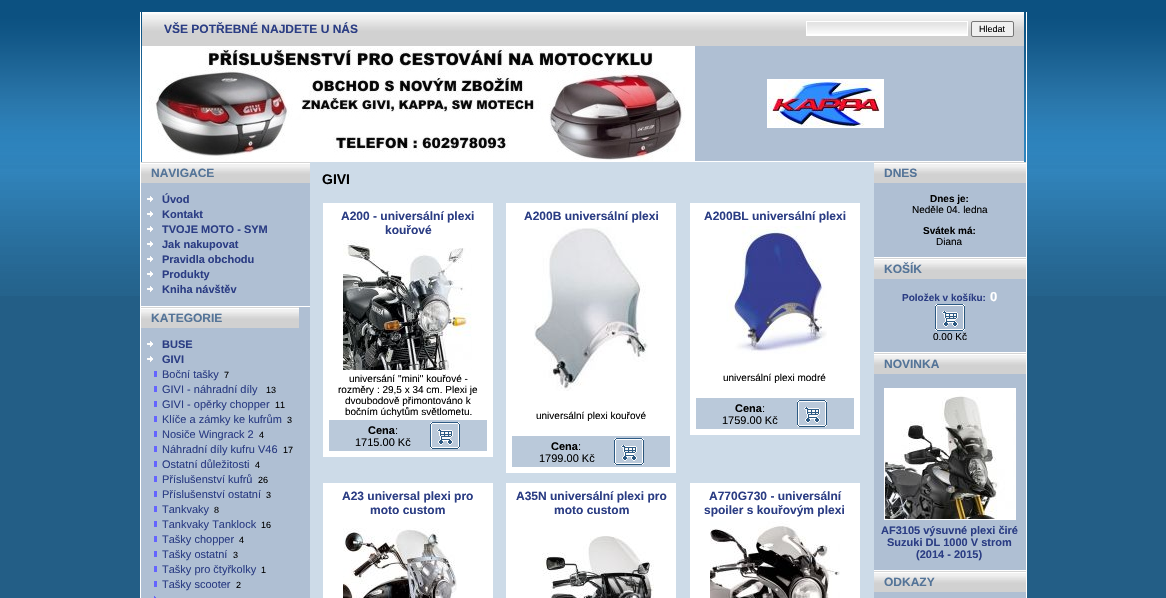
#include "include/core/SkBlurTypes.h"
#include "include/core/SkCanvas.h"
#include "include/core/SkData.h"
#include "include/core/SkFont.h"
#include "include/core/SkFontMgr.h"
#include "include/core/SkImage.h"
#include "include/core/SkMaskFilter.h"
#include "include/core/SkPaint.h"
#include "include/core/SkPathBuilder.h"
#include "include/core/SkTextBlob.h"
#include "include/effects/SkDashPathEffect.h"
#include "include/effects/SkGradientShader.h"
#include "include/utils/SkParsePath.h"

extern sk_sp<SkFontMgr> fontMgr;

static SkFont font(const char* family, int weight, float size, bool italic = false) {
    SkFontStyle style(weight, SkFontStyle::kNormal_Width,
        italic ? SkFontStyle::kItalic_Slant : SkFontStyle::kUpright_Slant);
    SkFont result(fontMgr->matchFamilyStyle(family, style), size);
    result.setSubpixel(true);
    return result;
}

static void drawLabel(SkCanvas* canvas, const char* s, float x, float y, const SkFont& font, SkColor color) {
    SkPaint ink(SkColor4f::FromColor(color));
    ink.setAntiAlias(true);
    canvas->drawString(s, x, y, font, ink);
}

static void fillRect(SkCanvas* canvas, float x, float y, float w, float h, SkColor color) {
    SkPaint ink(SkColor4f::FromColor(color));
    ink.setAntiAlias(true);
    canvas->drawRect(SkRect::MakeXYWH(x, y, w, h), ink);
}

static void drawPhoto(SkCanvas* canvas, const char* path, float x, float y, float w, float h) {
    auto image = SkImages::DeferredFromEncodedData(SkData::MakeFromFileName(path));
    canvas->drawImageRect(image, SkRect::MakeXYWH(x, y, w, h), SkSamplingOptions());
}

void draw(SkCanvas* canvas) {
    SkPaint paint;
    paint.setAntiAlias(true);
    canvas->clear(0xFF235E86);
    drawPhoto(canvas, "assets/img1.png", 0, 0, 1166, 296);
    fillRect(canvas, 140, 12, 1, 586, 0xFFFFFFFF);
    drawPhoto(canvas, "assets/img2.png", 142, 12, 596, 34);
    SkFont font1 = font("Liberation Sans", 700, 12);
    drawLabel(canvas, "VŠE POTŘEBNÉ NAJDETE U NÁS", 164, 33, font1, 0xFF2B3D84);
    drawPhoto(canvas, "assets/img3.png", 738, 12, 286, 34);
    fillRect(canvas, 807, 34, 160, 1, 0xFFFFFFFF);
    drawPhoto(canvas, "assets/img4.png", 807, 22, 160, 12);
    paint.setStroke(true);
    paint.setStrokeWidth(1);
    paint.setColor(0xFFFFFFFF);
    canvas->drawRect(SkRect::MakeXYWH(806.5f, 21.5f, 161, 14), paint);
    paint.setStroke(false);
    paint.setColor(0xFFEFEFEF);
    canvas->drawRoundRect(SkRect::MakeXYWH(971.5f, 21.5f, 42, 15), 1.5f, 1.5f, paint);
    paint.setStroke(true);
    paint.setColor(0xFF767676);
    canvas->drawRoundRect(SkRect::MakeXYWH(971.5f, 21.5f, 42, 15), 1.5f, 1.5f, paint);
    SkFont font2 = font("Liberation Sans", 400, 9);
    drawLabel(canvas, "Hledat", 979, 32, font2, 0xFF000000);
    fillRect(canvas, 695, 46, 329, 115, 0xFFAFBFD3);
    drawPhoto(canvas, "assets/img5.png", 142, 46, 553, 115);
    fillRect(canvas, 142, 161, 882, 1, 0xFFFFFFFF);
    paint.setColor(0xFFFFFFFF);
    canvas->drawRect(SkRect::MakeXYWH(767.5f, 79.5f, 116, 48), paint);
    drawPhoto(canvas, "assets/img6.png", 768, 80, 115, 47);
    fillRect(canvas, 141, 183, 169, 415, 0xFFAFBFD3);
    drawPhoto(canvas, "assets/img7.png", 141, 162, 169, 21);
    drawLabel(canvas, "NAVIGACE", 151, 177, font1, 0xFF547498);
    drawPhoto(canvas, "assets/img8.png", 147, 196, 6, 6);
    SkFont font3 = font("Liberation Sans", 700, 11);
    drawLabel(canvas, "Úvod", 162, 203, font3, 0xFF2B3D84);
    drawPhoto(canvas, "assets/img8.png", 147, 211, 6, 6);
    drawLabel(canvas, "Kontakt", 162, 218, font3, 0xFF2B3D84);
    drawPhoto(canvas, "assets/img8.png", 147, 226, 6, 6);
    drawLabel(canvas, "TVOJE MOTO - SYM", 162, 233, font3, 0xFF2B3D84);
    drawPhoto(canvas, "assets/img8.png", 147, 241, 6, 6);
    drawLabel(canvas, "Jak nakupovat", 162, 248, font3, 0xFF2B3D84);
    drawPhoto(canvas, "assets/img8.png", 147, 256, 6, 6);
    drawLabel(canvas, "Pravidla obchodu", 162, 263, font3, 0xFF2B3D84);
    drawPhoto(canvas, "assets/img8.png", 147, 271, 6, 6);
    drawLabel(canvas, "Produkty", 162, 278, font3, 0xFF2B3D84);
    drawPhoto(canvas, "assets/img8.png", 147, 286, 6, 6);
    drawLabel(canvas, "Kniha návštěv", 162, 293, font3, 0xFF2B3D84);
    fillRect(canvas, 141, 306, 169, 1, 0xFFFFFFFF);
    drawPhoto(canvas, "assets/img9.png", 141, 307, 158, 21);
    drawLabel(canvas, "KATEGORIE", 151, 322, font1, 0xFF547498);
    drawPhoto(canvas, "assets/img8.png", 147, 341, 6, 6);
    drawLabel(canvas, "BUSE", 162, 348, font3, 0xFF2B3D84);
    drawPhoto(canvas, "assets/img8.png", 147, 356, 6, 6);
    drawLabel(canvas, "GIVI", 162, 363, font3, 0xFF2B3D84);
    fillRect(canvas, 154, 371, 3, 6, 0xFF6464FF);
    SkFont font4 = font("Liberation Sans", 400, 11);
    drawLabel(canvas, "Boční tašky", 162, 378, font4, 0xFF2B3D84);
    drawLabel(canvas, "7", 224, 378, font2, 0xFF000000);
    fillRect(canvas, 154, 386, 3, 6, 0xFF6464FF);
    drawLabel(canvas, "GIVI - náhradní díly", 162, 393, font4, 0xFF2B3D84);
    drawLabel(canvas, "13", 266, 393, font2, 0xFF000000);
    fillRect(canvas, 154, 401, 3, 6, 0xFF6464FF);
    drawLabel(canvas, "GIVI - opěrky chopper", 162, 408, font4, 0xFF2B3D84);
    drawLabel(canvas, "11", 275, 408, font2, 0xFF000000);
    fillRect(canvas, 154, 416, 3, 6, 0xFF6464FF);
    drawLabel(canvas, "Klíče a zámky ke kufrům", 162, 423, font4, 0xFF2B3D84);
    drawLabel(canvas, "3", 287, 423, font2, 0xFF000000);
    fillRect(canvas, 154, 431, 3, 6, 0xFF6464FF);
    drawLabel(canvas, "Nosiče Wingrack 2", 162, 438, font4, 0xFF2B3D84);
    drawLabel(canvas, "4", 259, 438, font2, 0xFF000000);
    fillRect(canvas, 154, 446, 3, 6, 0xFF6464FF);
    drawLabel(canvas, "Náhradní díly kufru V46", 162, 453, font4, 0xFF2B3D84);
    drawLabel(canvas, "17", 283, 453, font2, 0xFF000000);
    fillRect(canvas, 154, 461, 3, 6, 0xFF6464FF);
    drawLabel(canvas, "Ostatní důležitosti", 162, 468, font4, 0xFF2B3D84);
    drawLabel(canvas, "4", 255, 468, font2, 0xFF000000);
    fillRect(canvas, 154, 476, 3, 6, 0xFF6464FF);
    drawLabel(canvas, "Příslušenství kufrů", 162, 483, font4, 0xFF2B3D84);
    drawLabel(canvas, "26", 258, 483, font2, 0xFF000000);
    fillRect(canvas, 154, 491, 3, 6, 0xFF6464FF);
    drawLabel(canvas, "Příslušenství ostatní", 162, 498, font4, 0xFF2B3D84);
    drawLabel(canvas, "3", 266, 498, font2, 0xFF000000);
    fillRect(canvas, 154, 506, 3, 6, 0xFF6464FF);
    drawLabel(canvas, "Tankvaky", 162, 513, font4, 0xFF2B3D84);
    drawLabel(canvas, "8", 214, 513, font2, 0xFF000000);
    fillRect(canvas, 154, 521, 3, 6, 0xFF6464FF);
    drawLabel(canvas, "Tankvaky Tanklock", 162, 528, font4, 0xFF2B3D84);
    drawLabel(canvas, "16", 261, 528, font2, 0xFF000000);
    fillRect(canvas, 154, 536, 3, 6, 0xFF6464FF);
    drawLabel(canvas, "Tašky chopper", 162, 543, font4, 0xFF2B3D84);
    drawLabel(canvas, "4", 239, 543, font2, 0xFF000000);
    fillRect(canvas, 154, 551, 3, 6, 0xFF6464FF);
    drawLabel(canvas, "Tašky ostatní", 162, 558, font4, 0xFF2B3D84);
    drawLabel(canvas, "3", 233, 558, font2, 0xFF000000);
    fillRect(canvas, 154, 566, 3, 6, 0xFF6464FF);
    drawLabel(canvas, "Tašky pro čtyřkolky", 162, 573, font4, 0xFF2B3D84);
    drawLabel(canvas, "1", 261, 573, font2, 0xFF000000);
    fillRect(canvas, 154, 581, 3, 6, 0xFF6464FF);
    drawLabel(canvas, "Tašky scooter", 162, 588, font4, 0xFF2B3D84);
    drawLabel(canvas, "2", 236, 588, font2, 0xFF000000);
    drawPhoto(canvas, "assets/img10.png", 154, 596, 2, 2);
    fillRect(canvas, 310, 162, 564, 436, 0xFFCDDBE8);
    SkFont font5 = font("Liberation Sans", 700, 14);
    drawLabel(canvas, "GIVI", 322, 184, font5, 0xFF000000);
    fillRect(canvas, 323, 203, 170, 254, 0xFFFFFFFF);
    drawLabel(canvas, "A200 - universální plexi", 341, 220, font1, 0xFF2B3D84);
    drawLabel(canvas, "kouřové", 385, 234, font1, 0xFF2B3D84);
    drawPhoto(canvas, "assets/img11.png", 343, 240, 129, 130);
    SkFont font6 = font("Liberation Sans", 400, 10);
    drawLabel(canvas, "universání \"mini\" kouřové -", 349, 382, font6, 0xFF000000);
    drawLabel(canvas, "rozměry : 29,5 x 34 cm. Plexi je", 338, 393, font6, 0xFF000000);
    drawLabel(canvas, "dvoubodově přimontováno k", 345, 404, font6, 0xFF000000);
    drawLabel(canvas, "bočním úchytům světlometu.", 345, 415, font6, 0xFF000000);
    fillRect(canvas, 329, 420, 158, 31, 0xFFBAC9DA);
    drawLabel(canvas, "Cena", 368, 434, font3, 0xFF000000);
    drawLabel(canvas, ":", 395, 434, font4, 0xFF000000);
    drawLabel(canvas, "1715.00 Kč", 355, 446, font4, 0xFF000000);
    drawPhoto(canvas, "assets/img12.png", 430, 422, 30, 27);
    fillRect(canvas, 506, 203, 170, 270, 0xFFFFFFFF);
    drawLabel(canvas, "A200B universální plexi", 524, 220, font1, 0xFF2B3D84);
    drawPhoto(canvas, "assets/img13.png", 534, 227, 114, 164);
    drawLabel(canvas, "universální plexi kouřové", 536, 419, font6, 0xFF000000);
    fillRect(canvas, 512, 436, 158, 31, 0xFFBAC9DA);
    drawLabel(canvas, "Cena", 551, 450, font3, 0xFF000000);
    drawLabel(canvas, ":", 578, 450, font4, 0xFF000000);
    drawLabel(canvas, "1799.00 Kč", 539, 462, font4, 0xFF000000);
    drawPhoto(canvas, "assets/img12.png", 614, 438, 30, 27);
    fillRect(canvas, 690, 203, 170, 232, 0xFFFFFFFF);
    drawLabel(canvas, "A200BL universální plexi", 704, 220, font1, 0xFF2B3D84);
    drawPhoto(canvas, "assets/img14.png", 726, 226, 101, 128);
    drawLabel(canvas, "universální plexi modré", 723, 381, font6, 0xFF000000);
    fillRect(canvas, 696, 398, 158, 31, 0xFFBAC9DA);
    drawLabel(canvas, "Cena", 735, 412, font3, 0xFF000000);
    drawLabel(canvas, ":", 762, 412, font4, 0xFF000000);
    drawLabel(canvas, "1759.00 Kč", 722, 424, font4, 0xFF000000);
    drawPhoto(canvas, "assets/img12.png", 797, 400, 30, 27);
    fillRect(canvas, 323, 483, 170, 115, 0xFFFFFFFF);
    drawLabel(canvas, "A23 universal plexi pro", 342, 500, font1, 0xFF2B3D84);
    drawLabel(canvas, "moto custom", 370, 514, font1, 0xFF2B3D84);
    drawPhoto(canvas, "assets/img15.png", 343, 528, 114, 70);
    fillRect(canvas, 506, 483, 170, 115, 0xFFFFFFFF);
    drawLabel(canvas, "A35N universální plexi pro", 516, 500, font1, 0xFF2B3D84);
    drawLabel(canvas, "moto custom", 554, 514, font1, 0xFF2B3D84);
    drawPhoto(canvas, "assets/img16.png", 542, 536, 112, 62);
    fillRect(canvas, 690, 483, 170, 115, 0xFFFFFFFF);
    drawLabel(canvas, "A770G730 - universální", 709, 500, font1, 0xFF2B3D84);
    drawLabel(canvas, "spoiler s kouřovým plexi", 704, 514, font1, 0xFF2B3D84);
    drawPhoto(canvas, "assets/img17.png", 710, 521, 130, 77);
    fillRect(canvas, 874, 183, 152, 415, 0xFFAFBFD3);
    drawPhoto(canvas, "assets/img18.png", 874, 162, 152, 21);
    drawLabel(canvas, "DNES", 884, 177, font1, 0xFF547498);
    SkFont font7 = font("Liberation Sans", 700, 10);
    drawLabel(canvas, "Dnes je:", 930, 202, font7, 0xFF000000);
    drawLabel(canvas, "Neděle 04. ledna", 912, 213, font6, 0xFF000000);
    drawLabel(canvas, "Svátek má:", 923, 234, font7, 0xFF000000);
    drawLabel(canvas, "Diana", 936, 245, font6, 0xFF000000);
    fillRect(canvas, 874, 257, 152, 1, 0xFFFFFFFF);
    drawPhoto(canvas, "assets/img18.png", 874, 258, 152, 21);
    drawLabel(canvas, "KOŠÍK", 884, 273, font1, 0xFF547498);
    drawLabel(canvas, "Položek v košíku:", 902, 301, font7, 0xFF2B3D84);
    SkFont font8 = font("Liberation Sans", 700, 13);
    drawLabel(canvas, "0", 990, 301, font8, 0xFFFFFFFF);
    drawPhoto(canvas, "assets/img19.png", 935, 304, 30, 27);
    drawLabel(canvas, "0.00 Kč", 933, 340, font6, 0xFF000000);
    fillRect(canvas, 874, 352, 152, 1, 0xFFFFFFFF);
    drawPhoto(canvas, "assets/img18.png", 874, 353, 152, 21);
    drawLabel(canvas, "NOVINKA", 884, 368, font1, 0xFF547498);
    canvas->drawRect(SkRect::MakeXYWH(884.5f, 388.5f, 131, 131), paint);
    drawPhoto(canvas, "assets/img20.png", 885, 389, 130, 130);
    drawLabel(canvas, "AF3105 výsuvné plexi čiré", 881, 534, font3, 0xFF2B3D84);
    drawLabel(canvas, "Suzuki DL 1000 V strom", 887, 546, font3, 0xFF2B3D84);
    drawLabel(canvas, "(2014 - 2015)", 916, 558, font3, 0xFF2B3D84);
    fillRect(canvas, 874, 570, 152, 1, 0xFFFFFFFF);
    drawPhoto(canvas, "assets/img18.png", 874, 571, 152, 21);
    drawLabel(canvas, "ODKAZY", 884, 586, font1, 0xFF547498);
    fillRect(canvas, 1026, 12, 1, 586, 0xFFFFFFFF);
}
